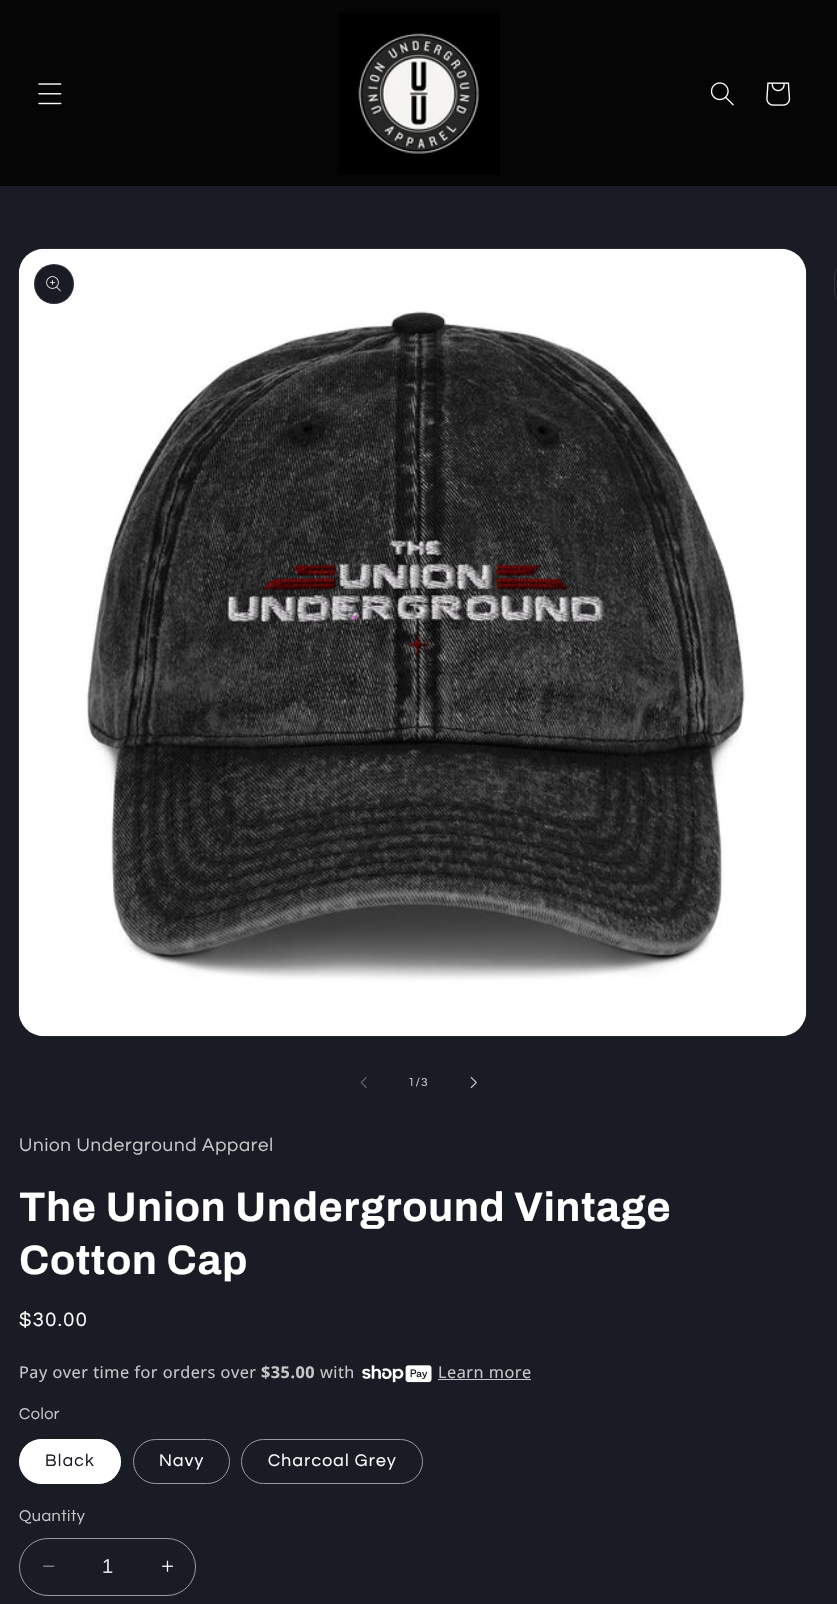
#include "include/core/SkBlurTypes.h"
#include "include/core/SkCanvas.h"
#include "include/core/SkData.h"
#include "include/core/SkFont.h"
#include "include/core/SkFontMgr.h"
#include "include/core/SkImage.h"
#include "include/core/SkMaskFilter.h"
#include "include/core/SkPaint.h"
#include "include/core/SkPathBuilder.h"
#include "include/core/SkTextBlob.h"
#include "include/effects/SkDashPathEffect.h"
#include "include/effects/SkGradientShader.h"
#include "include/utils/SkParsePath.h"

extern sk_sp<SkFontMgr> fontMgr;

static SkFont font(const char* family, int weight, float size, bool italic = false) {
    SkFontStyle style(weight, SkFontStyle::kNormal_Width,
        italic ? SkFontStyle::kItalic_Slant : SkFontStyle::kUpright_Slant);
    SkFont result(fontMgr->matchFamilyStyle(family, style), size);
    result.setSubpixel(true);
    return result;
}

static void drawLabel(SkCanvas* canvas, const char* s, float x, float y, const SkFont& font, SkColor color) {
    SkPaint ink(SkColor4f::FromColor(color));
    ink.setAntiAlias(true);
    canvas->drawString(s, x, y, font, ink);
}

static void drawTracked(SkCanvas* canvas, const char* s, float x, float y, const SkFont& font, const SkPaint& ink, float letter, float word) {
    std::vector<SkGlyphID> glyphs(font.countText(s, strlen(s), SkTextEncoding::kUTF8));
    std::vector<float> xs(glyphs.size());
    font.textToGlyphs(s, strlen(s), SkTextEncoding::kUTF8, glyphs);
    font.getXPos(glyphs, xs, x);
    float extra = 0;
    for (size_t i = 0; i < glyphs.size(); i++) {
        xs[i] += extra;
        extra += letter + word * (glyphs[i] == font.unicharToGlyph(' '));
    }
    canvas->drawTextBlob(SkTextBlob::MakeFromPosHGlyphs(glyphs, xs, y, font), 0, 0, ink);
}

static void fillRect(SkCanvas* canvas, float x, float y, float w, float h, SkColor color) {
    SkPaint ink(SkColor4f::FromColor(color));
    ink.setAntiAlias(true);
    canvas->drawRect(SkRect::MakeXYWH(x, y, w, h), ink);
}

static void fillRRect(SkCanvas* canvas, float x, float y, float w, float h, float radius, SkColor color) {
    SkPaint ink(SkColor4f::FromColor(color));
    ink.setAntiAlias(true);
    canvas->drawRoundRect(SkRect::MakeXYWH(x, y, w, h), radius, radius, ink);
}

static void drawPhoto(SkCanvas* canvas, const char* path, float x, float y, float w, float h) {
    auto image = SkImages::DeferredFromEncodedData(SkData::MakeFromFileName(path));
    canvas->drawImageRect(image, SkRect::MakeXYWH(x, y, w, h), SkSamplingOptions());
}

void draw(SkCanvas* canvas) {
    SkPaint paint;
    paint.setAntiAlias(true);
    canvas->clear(0xFF191C24);
    fillRect(canvas, 0, 0, 837, 186, 0xFF060505);
    drawPhoto(canvas, "assets/img1.png", 38, 83, 24, 22);
    drawPhoto(canvas, "assets/img2.png", 338, 13, 162, 162);
    drawPhoto(canvas, "assets/img3.png", 710, 82, 24, 24);
    drawPhoto(canvas, "assets/img4.png", 766, 82, 25, 24);
    drawPhoto(canvas, "assets/img5.png", 18, 248, 789, 789);
    paint.setColor(0xFF191C24);
    canvas->drawCircle(54, 284, 20, paint);
    paint.setStroke(true);
    paint.setStrokeWidth(1);
    paint.setColor(0x1AFFFFFF);
    canvas->drawCircle(54, 284, 19.5f, paint);
    drawPhoto(canvas, "assets/img6.png", 46, 276, 15, 16);
    paint.setColor(0xFF30333A);
    canvas->drawRoundRect(SkRect::MakeXYWH(834.5f, 264.5f, 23, 39), 19.5f, 19.5f, paint);
    drawPhoto(canvas, "assets/img7.png", 360, 1077, 7, 11);
    SkFont font1 = font("Questrial", 400, 12);
    paint.setStroke(false);
    paint.setColor(0xFFC6C6C8);
    drawTracked(canvas, "1/3", 408, 1086, font1, paint, 1, 0);
    drawPhoto(canvas, "assets/img8.png", 470, 1077, 7, 11);
    SkFont font2 = font("Questrial", 400, 18.75f);
    drawTracked(canvas, "Union Underground Apparel", 19, 1151, font2, paint, 0.75f, 0);
    SkFont font3 = font("Archivo", 700, 41.25f);
    paint.setColor(0xFFFFFFFF);
    drawTracked(canvas, "The Union Underground Vintage", 19, 1221, font3, paint, 0.8f, 0);
    drawTracked(canvas, "Cotton Cap", 19, 1274, font3, paint, 0.8f, 0);
    SkFont font4 = font("Questrial", 400, 20);
    drawTracked(canvas, "$30.00", 19, 1326, font4, paint, 1.5f, 0);
    SkFont font5 = font("Noto Sans", 400, 16.25f);
    paint.setColor(0xFFC6C6C8);
    drawTracked(canvas, "Pay over time for orders over", 19, 1378, font5, paint, 0.5f, 0);
    SkFont font6 = font("Noto Sans", 700, 16.25f);
    drawTracked(canvas, "$35.00", 261, 1378, font6, paint, 0.5f, 0);
    drawTracked(canvas, "with", 320, 1378, font5, paint, 0.5f, 0);
    drawPhoto(canvas, "assets/img9.png", 362, 1365, 70, 18);
    drawTracked(canvas, "Learn more", 438, 1378, font5, paint, 0.5f, 0);
    fillRect(canvas, 438, 1379, 93, 1, 0xFFC6C6C8);
    SkFont font7 = font("Questrial", 400, 16.25f);
    drawTracked(canvas, "Color", 19, 1419, font7, paint, 0.5f, 0);
    fillRRect(canvas, 19, 1439, 102, 45, 22.5f, 0xFFFFFFFF);
    paint.setStroke(true);
    paint.setColor(0x8CFFFFFF);
    canvas->drawRoundRect(SkRect::MakeXYWH(19.5f, 1439.5f, 101, 44), 22, 22, paint);
    SkFont font8 = font("Questrial", 400, 17.5f);
    paint.setStroke(false);
    paint.setColor(0xFF191C24);
    drawTracked(canvas, "Black", 45, 1466, font8, paint, 1.25f, 0);
    paint.setStroke(true);
    paint.setColor(0xFF98999C);
    canvas->drawRoundRect(SkRect::MakeXYWH(133.5f, 1439.5f, 96, 44), 22, 22, paint);
    paint.setStroke(false);
    paint.setColor(0xFFFFFFFF);
    drawTracked(canvas, "Navy", 159, 1466, font8, paint, 1.25f, 0);
    paint.setStroke(true);
    paint.setColor(0xFF98999C);
    canvas->drawRoundRect(SkRect::MakeXYWH(241.5f, 1439.5f, 181, 44), 22, 22, paint);
    paint.setStroke(false);
    paint.setColor(0xFFFFFFFF);
    drawTracked(canvas, "Charcoal Grey", 268, 1466, font8, paint, 1.25f, 0);
    paint.setColor(0xFFC6C6C8);
    drawTracked(canvas, "Quantity", 19, 1521, font7, paint, 0.5f, 0);
    drawPhoto(canvas, "assets/img10.png", 43, 1565, 12, 2);
    drawPhoto(canvas, "assets/img11.png", 161, 1560, 13, 12);
    paint.setStroke(true);
    paint.setColor(0xFF98999C);
    canvas->drawRoundRect(SkRect::MakeXYWH(19.5f, 1538.5f, 176, 57), 28.5f, 28.5f, paint);
    SkFont font9 = font("Liberation Sans", 400, 20);
    drawLabel(canvas, "1", 102, 1573, font9, 0xFFDDDDDE);
}
